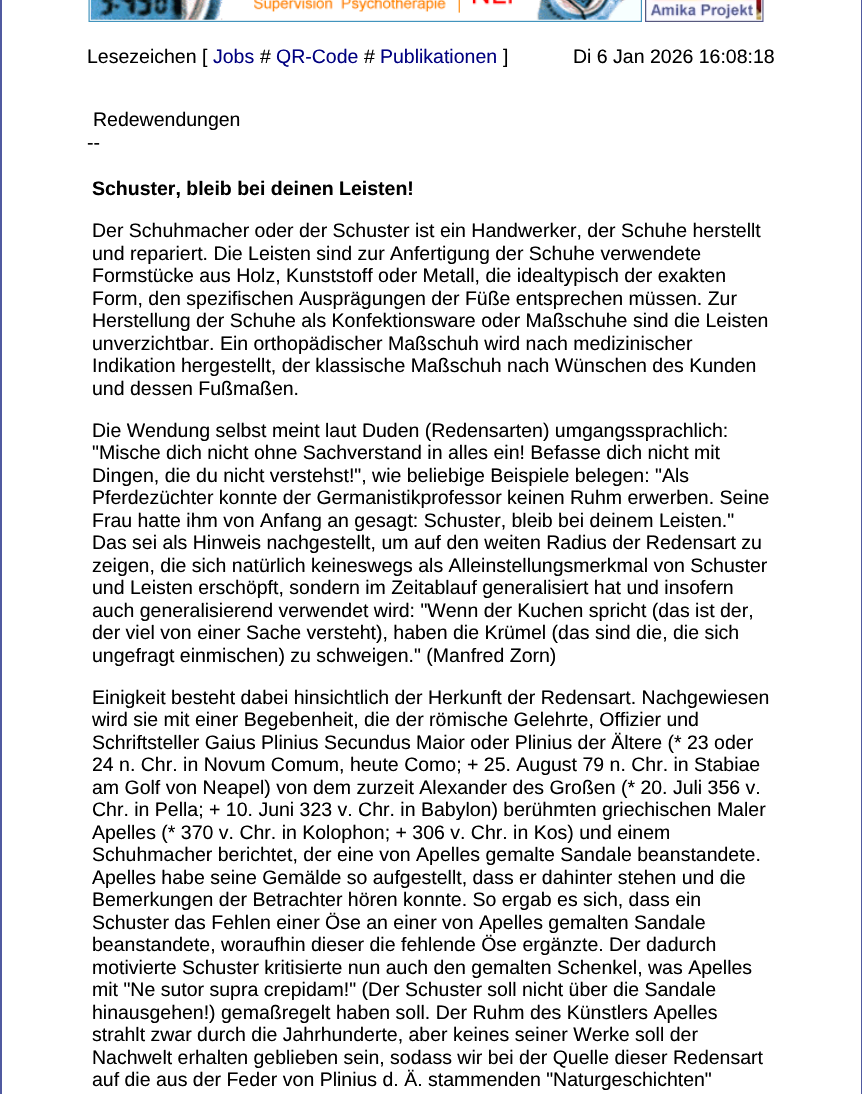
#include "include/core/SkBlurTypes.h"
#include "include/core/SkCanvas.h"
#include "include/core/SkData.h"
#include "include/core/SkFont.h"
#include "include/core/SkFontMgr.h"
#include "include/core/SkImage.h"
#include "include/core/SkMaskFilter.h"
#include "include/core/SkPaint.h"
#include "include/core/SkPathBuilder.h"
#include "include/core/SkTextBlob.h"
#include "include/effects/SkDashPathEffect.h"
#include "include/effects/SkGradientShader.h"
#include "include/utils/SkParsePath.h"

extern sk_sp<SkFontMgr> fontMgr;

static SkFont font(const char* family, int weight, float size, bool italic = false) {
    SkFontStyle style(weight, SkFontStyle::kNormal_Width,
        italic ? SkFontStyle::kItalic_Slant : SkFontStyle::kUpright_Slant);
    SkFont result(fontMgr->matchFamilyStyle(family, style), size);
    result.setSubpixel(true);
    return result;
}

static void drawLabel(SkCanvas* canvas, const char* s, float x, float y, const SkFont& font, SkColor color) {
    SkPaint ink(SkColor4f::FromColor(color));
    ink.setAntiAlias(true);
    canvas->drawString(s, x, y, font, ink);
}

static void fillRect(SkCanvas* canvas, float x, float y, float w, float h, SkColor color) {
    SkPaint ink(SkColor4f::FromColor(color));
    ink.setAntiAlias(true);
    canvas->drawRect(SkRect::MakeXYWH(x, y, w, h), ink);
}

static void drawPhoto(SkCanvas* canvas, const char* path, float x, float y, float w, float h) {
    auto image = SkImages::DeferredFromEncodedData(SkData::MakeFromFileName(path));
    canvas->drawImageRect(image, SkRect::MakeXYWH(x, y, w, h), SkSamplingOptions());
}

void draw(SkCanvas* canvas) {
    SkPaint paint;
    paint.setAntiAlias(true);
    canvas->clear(0xFF505AA0);
    fillRect(canvas, 2, 0, 859, 1094, 0xFFFFFFFF);
    drawPhoto(canvas, "assets/img1.png", 88, 0, 554, 22);
    drawPhoto(canvas, "assets/img2.png", 645, 0, 119, 22);
    SkFont font1 = font("Liberation Sans", 400, 19.5f);
    drawLabel(canvas, "Lesezeichen [", 87, 63, font1, 0xFF000000);
    drawLabel(canvas, "Jobs", 213, 63, font1, 0xFF000080);
    drawLabel(canvas, "#", 260, 63, font1, 0xFF000000);
    drawLabel(canvas, "QR-Code", 276, 63, font1, 0xFF000080);
    drawLabel(canvas, "#", 364, 63, font1, 0xFF000000);
    drawLabel(canvas, "Publikationen", 380, 63, font1, 0xFF000080);
    drawLabel(canvas, "]", 503, 63, font1, 0xFF000000);
    drawLabel(canvas, "Di 6 Jan 2026 16:08:18", 573, 63, font1, 0xFF000000);
    drawLabel(canvas, "Redewendungen", 93, 126, font1, 0xFF000000);
    drawLabel(canvas, "--", 87, 149, font1, 0xFF000000);
    SkFont font2 = font("Liberation Sans", 700, 19.5f);
    drawLabel(canvas, "Schuster, bleib bei deinen Leisten!", 92, 195, font2, 0xFF000000);
    drawLabel(canvas, "Der Schuhmacher oder der Schuster ist ein Handwerker, der Schuhe herstellt", 92, 237, font1, 0xFF000000);
    drawLabel(canvas, "und repariert. Die Leisten sind zur Anfertigung der Schuhe verwendete", 92, 260, font1, 0xFF000000);
    drawLabel(canvas, "Formstücke aus Holz, Kunststoff oder Metall, die idealtypisch der exakten", 92, 282, font1, 0xFF000000);
    drawLabel(canvas, "Form, den spezifischen Ausprägungen der Füße entsprechen müssen. Zur", 92, 305, font1, 0xFF000000);
    drawLabel(canvas, "Herstellung der Schuhe als Konfektionsware oder Maßschuhe sind die Leisten", 92, 327, font1, 0xFF000000);
    drawLabel(canvas, "unverzichtbar. Ein orthopädischer Maßschuh wird nach medizinischer", 92, 350, font1, 0xFF000000);
    drawLabel(canvas, "Indikation hergestellt, der klassische Maßschuh nach Wünschen des Kunden", 92, 372, font1, 0xFF000000);
    drawLabel(canvas, "und dessen Fußmaßen.", 92, 395, font1, 0xFF000000);
    drawLabel(canvas, "Die Wendung selbst meint laut Duden (Redensarten) umgangssprachlich:", 92, 437, font1, 0xFF000000);
    drawLabel(canvas, "\"Mische dich nicht ohne Sachverstand in alles ein! Befasse dich nicht mit", 92, 459, font1, 0xFF000000);
    drawLabel(canvas, "Dingen, die du nicht verstehst!\", wie beliebige Beispiele belegen: \"Als", 92, 482, font1, 0xFF000000);
    drawLabel(canvas, "Pferdezüchter konnte der Germanistikprofessor keinen Ruhm erwerben. Seine", 92, 504, font1, 0xFF000000);
    drawLabel(canvas, "Frau hatte ihm von Anfang an gesagt: Schuster, bleib bei deinem Leisten.\"", 92, 527, font1, 0xFF000000);
    drawLabel(canvas, "Das sei als Hinweis nachgestellt, um auf den weiten Radius der Redensart zu", 92, 549, font1, 0xFF000000);
    drawLabel(canvas, "zeigen, die sich natürlich keineswegs als Alleinstellungsmerkmal von Schuster", 92, 572, font1, 0xFF000000);
    drawLabel(canvas, "und Leisten erschöpft, sondern im Zeitablauf generalisiert hat und insofern", 92, 594, font1, 0xFF000000);
    drawLabel(canvas, "auch generalisierend verwendet wird: \"Wenn der Kuchen spricht (das ist der,", 92, 617, font1, 0xFF000000);
    drawLabel(canvas, "der viel von einer Sache versteht), haben die Krümel (das sind die, die sich", 92, 639, font1, 0xFF000000);
    drawLabel(canvas, "ungefragt einmischen) zu schweigen.\" (Manfred Zorn)", 92, 662, font1, 0xFF000000);
    drawLabel(canvas, "Einigkeit besteht dabei hinsichtlich der Herkunft der Redensart. Nachgewiesen", 92, 704, font1, 0xFF000000);
    drawLabel(canvas, "wird sie mit einer Begebenheit, die der römische Gelehrte, Offizier und", 92, 726, font1, 0xFF000000);
    drawLabel(canvas, "Schriftsteller Gaius Plinius Secundus Maior oder Plinius der Ältere (* 23 oder", 92, 749, font1, 0xFF000000);
    drawLabel(canvas, "24 n. Chr. in Novum Comum, heute Como; + 25. August 79 n. Chr. in Stabiae", 92, 771, font1, 0xFF000000);
    drawLabel(canvas, "am Golf von Neapel) von dem zurzeit Alexander des Großen (* 20. Juli 356 v.", 92, 794, font1, 0xFF000000);
    drawLabel(canvas, "Chr. in Pella; + 10. Juni 323 v. Chr. in Babylon) berühmten griechischen Maler", 92, 816, font1, 0xFF000000);
    drawLabel(canvas, "Apelles (* 370 v. Chr. in Kolophon; + 306 v. Chr. in Kos) und einem", 92, 839, font1, 0xFF000000);
    drawLabel(canvas, "Schuhmacher berichtet, der eine von Apelles gemalte Sandale beanstandete.", 92, 861, font1, 0xFF000000);
    drawLabel(canvas, "Apelles habe seine Gemälde so aufgestellt, dass er dahinter stehen und die", 92, 884, font1, 0xFF000000);
    drawLabel(canvas, "Bemerkungen der Betrachter hören konnte. So ergab es sich, dass ein", 92, 906, font1, 0xFF000000);
    drawLabel(canvas, "Schuster das Fehlen einer Öse an einer von Apelles gemalten Sandale", 92, 929, font1, 0xFF000000);
    drawLabel(canvas, "beanstandete, woraufhin dieser die fehlende Öse ergänzte. Der dadurch", 92, 951, font1, 0xFF000000);
    drawLabel(canvas, "motivierte Schuster kritisierte nun auch den gemalten Schenkel, was Apelles", 92, 974, font1, 0xFF000000);
    drawLabel(canvas, "mit \"Ne sutor supra crepidam!\" (Der Schuster soll nicht über die Sandale", 92, 996, font1, 0xFF000000);
    drawLabel(canvas, "hinausgehen!) gemaßregelt haben soll. Der Ruhm des Künstlers Apelles", 92, 1019, font1, 0xFF000000);
    drawLabel(canvas, "strahlt zwar durch die Jahrhunderte, aber keines seiner Werke soll der", 92, 1041, font1, 0xFF000000);
    drawLabel(canvas, "Nachwelt erhalten geblieben sein, sodass wir bei der Quelle dieser Redensart", 92, 1064, font1, 0xFF000000);
    drawLabel(canvas, "auf die aus der Feder von Plinius d. Ä. stammenden \"Naturgeschichten\"", 92, 1086, font1, 0xFF000000);
}
